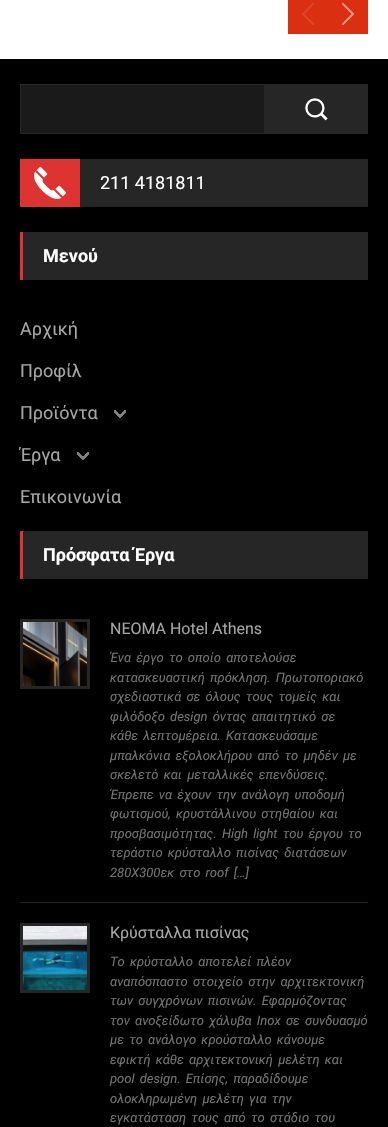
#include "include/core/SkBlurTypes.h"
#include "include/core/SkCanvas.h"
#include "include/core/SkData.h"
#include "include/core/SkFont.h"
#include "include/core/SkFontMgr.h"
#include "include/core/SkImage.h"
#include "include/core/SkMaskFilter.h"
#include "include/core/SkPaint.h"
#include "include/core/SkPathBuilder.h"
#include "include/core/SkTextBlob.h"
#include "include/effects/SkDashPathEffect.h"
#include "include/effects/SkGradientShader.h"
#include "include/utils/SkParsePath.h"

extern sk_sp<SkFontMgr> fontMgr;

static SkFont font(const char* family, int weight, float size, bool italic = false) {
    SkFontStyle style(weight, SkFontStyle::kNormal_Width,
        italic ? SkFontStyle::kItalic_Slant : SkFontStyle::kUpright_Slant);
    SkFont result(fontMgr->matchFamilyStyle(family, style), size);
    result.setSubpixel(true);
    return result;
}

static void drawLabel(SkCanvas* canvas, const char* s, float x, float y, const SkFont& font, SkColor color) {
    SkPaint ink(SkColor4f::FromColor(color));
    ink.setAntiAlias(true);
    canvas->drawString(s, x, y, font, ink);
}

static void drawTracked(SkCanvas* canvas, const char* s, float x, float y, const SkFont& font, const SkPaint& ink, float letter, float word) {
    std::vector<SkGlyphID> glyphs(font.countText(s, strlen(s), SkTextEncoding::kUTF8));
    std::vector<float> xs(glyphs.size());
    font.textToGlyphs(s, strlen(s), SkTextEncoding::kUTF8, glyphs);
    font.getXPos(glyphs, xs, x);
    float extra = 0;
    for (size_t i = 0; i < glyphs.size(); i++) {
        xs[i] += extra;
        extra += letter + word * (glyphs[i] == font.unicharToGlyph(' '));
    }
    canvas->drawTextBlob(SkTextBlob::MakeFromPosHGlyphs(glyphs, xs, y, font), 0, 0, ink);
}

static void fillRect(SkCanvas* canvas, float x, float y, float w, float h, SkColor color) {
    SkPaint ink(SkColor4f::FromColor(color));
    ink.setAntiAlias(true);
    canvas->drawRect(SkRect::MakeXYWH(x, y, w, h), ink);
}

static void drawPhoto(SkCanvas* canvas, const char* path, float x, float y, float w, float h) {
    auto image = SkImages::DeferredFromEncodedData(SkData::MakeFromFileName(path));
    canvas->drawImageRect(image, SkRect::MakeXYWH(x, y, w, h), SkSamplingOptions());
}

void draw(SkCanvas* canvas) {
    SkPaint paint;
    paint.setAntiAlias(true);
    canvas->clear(0xFFFFFFFF);
    fillRect(canvas, 288, 0, 80, 34, 0xFFDA2F10);
    drawPhoto(canvas, "assets/img1.png", 302, 3, 12, 22);
    drawPhoto(canvas, "assets/img2.png", 342, 3, 12, 22);
    fillRect(canvas, 0, 59, 388, 1068, 0xFF000000);
    fillRect(canvas, 21, 85, 243, 48, 0xFF1A1A1A);
    fillRect(canvas, 20, 84, 244, 1, 0xFF262626);
    fillRect(canvas, 20, 133, 244, 1, 0xFF262626);
    fillRect(canvas, 20, 84, 1, 50, 0xFF262626);
    fillRect(canvas, 264, 84, 104, 50, 0xFF262626);
    drawPhoto(canvas, "assets/img3.png", 305, 98, 23, 23);
    fillRect(canvas, 20, 159, 60, 48, 0xFFDD3333);
    fillRect(canvas, 80, 159, 288, 48, 0xFF262626);
    drawPhoto(canvas, "assets/img4.png", 34, 167, 32, 32);
    SkFont font1 = font("Roboto", 400, 18);
    drawLabel(canvas, "211 4181811", 100, 189, font1, 0xFFFFFFFF);
    fillRect(canvas, 23, 232, 345, 48, 0xFF262626);
    fillRect(canvas, 20, 232, 3, 48, 0xFFDD3333);
    SkFont font2 = font("Roboto", 700, 18);
    drawLabel(canvas, "Μενού", 43, 262, font2, 0xFFFFFFFF);
    drawLabel(canvas, "Αρχική", 20, 335, font1, 0xFFA6A6A6);
    drawLabel(canvas, "Προφίλ", 20, 377, font1, 0xFFA6A6A6);
    drawPhoto(canvas, "assets/img5.png", 114, 410, 12, 8);
    drawLabel(canvas, "Προϊόντα", 20, 419, font1, 0xFFA6A6A6);
    drawPhoto(canvas, "assets/img5.png", 77, 452, 12, 8);
    drawLabel(canvas, "Έργα", 20, 461, font1, 0xFFA6A6A6);
    drawLabel(canvas, "Επικοινωνία", 20, 503, font1, 0xFFA6A6A6);
    fillRect(canvas, 23, 531, 345, 48, 0xFF262626);
    fillRect(canvas, 20, 531, 3, 48, 0xFFDD3333);
    drawLabel(canvas, "Πρόσφατα Έργα", 43, 561, font2, 0xFFFFFFFF);
    fillRect(canvas, 20, 902, 348, 1, 0xFF262626);
    paint.setStroke(true);
    paint.setStrokeWidth(3);
    paint.setColor(0xFF262626);
    canvas->drawRect(SkRect::MakeXYWH(21.5f, 620.5f, 67, 67), paint);
    drawPhoto(canvas, "assets/img6.png", 23, 622, 64, 64);
    SkFont font3 = font("Roboto", 400, 16);
    drawLabel(canvas, "NEOMA Hotel Athens", 110, 634, font3, 0xFFA6A6A6);
    SkFont font4 = font("Roboto", 400, 13, true);
    paint.setStroke(false);
    paint.setColor(0xFF747474);
    drawTracked(canvas, "Ένα έργο το οποίο αποτελούσε", 110, 662, font4, paint, 0, 2);
    drawTracked(canvas, "κατασκευαστική πρόκληση. Πρωτοποριακό", 110, 682, font4, paint, 0, 2);
    drawTracked(canvas, "σχεδιαστικά σε όλους τους τομείς και", 110, 701, font4, paint, 0, 2);
    drawTracked(canvas, "φιλόδοξο design όντας απαιτητικό σε", 110, 721, font4, paint, 0, 2);
    drawTracked(canvas, "κάθε λεπτομέρεια. Κατασκευάσαμε", 110, 740, font4, paint, 0, 2);
    drawTracked(canvas, "μπαλκόνια εξολοκλήρου από το μηδέν με", 110, 760, font4, paint, 0, 2);
    drawTracked(canvas, "σκελετό και μεταλλικές επενδύσεις.", 110, 779, font4, paint, 0, 2);
    drawTracked(canvas, "Έπρεπε να έχουν την ανάλογη υποδομή", 110, 799, font4, paint, 0, 2);
    drawTracked(canvas, "φωτισμού, κρυστάλλινου στηθαίου και", 110, 818, font4, paint, 0, 2);
    drawTracked(canvas, "προσβασιμότητας. High light του έργου το", 110, 838, font4, paint, 0, 2);
    drawTracked(canvas, "τεράστιο κρύσταλλο πισίνας διατάσεων", 110, 857, font4, paint, 0, 2);
    drawTracked(canvas, "280Χ300εκ στο roof […]", 110, 877, font4, paint, 0, 2);
    paint.setStroke(true);
    paint.setColor(0xFF262626);
    canvas->drawRect(SkRect::MakeXYWH(21.5f, 924.5f, 67, 67), paint);
    drawPhoto(canvas, "assets/img7.png", 23, 926, 64, 64);
    drawLabel(canvas, "Κρύσταλλα πισίνας", 110, 938, font3, 0xFFA6A6A6);
    paint.setStroke(false);
    paint.setColor(0xFF747474);
    drawTracked(canvas, "Το κρύσταλλο αποτελεί πλέον", 110, 966, font4, paint, 0, 2);
    drawTracked(canvas, "αναπόσπαστο στοιχείο στην αρχιτεκτονική", 110, 986, font4, paint, 0, 2);
    drawTracked(canvas, "των συγχρόνων πισινών. Εφαρμόζοντας", 110, 1005, font4, paint, 0, 2);
    drawTracked(canvas, "τον ανοξείδωτο χάλυβα Inox σε συνδυασμό", 110, 1025, font4, paint, 0, 2);
    drawTracked(canvas, "με το ανάλογο κρούσταλλο κάνουμε", 110, 1044, font4, paint, 0, 2);
    drawTracked(canvas, "εφικτή κάθε αρχιτεκτονική μελέτη και", 110, 1064, font4, paint, 0, 2);
    drawTracked(canvas, "pool design. Επίσης, παραδίδουμε", 110, 1083, font4, paint, 0, 2);
    drawTracked(canvas, "ολοκληρωμένη μελέτη για την", 110, 1103, font4, paint, 0, 2);
    drawTracked(canvas, "εγκατάσταση τους από το στάδιο του", 110, 1122, font4, paint, 0, 2);
}
